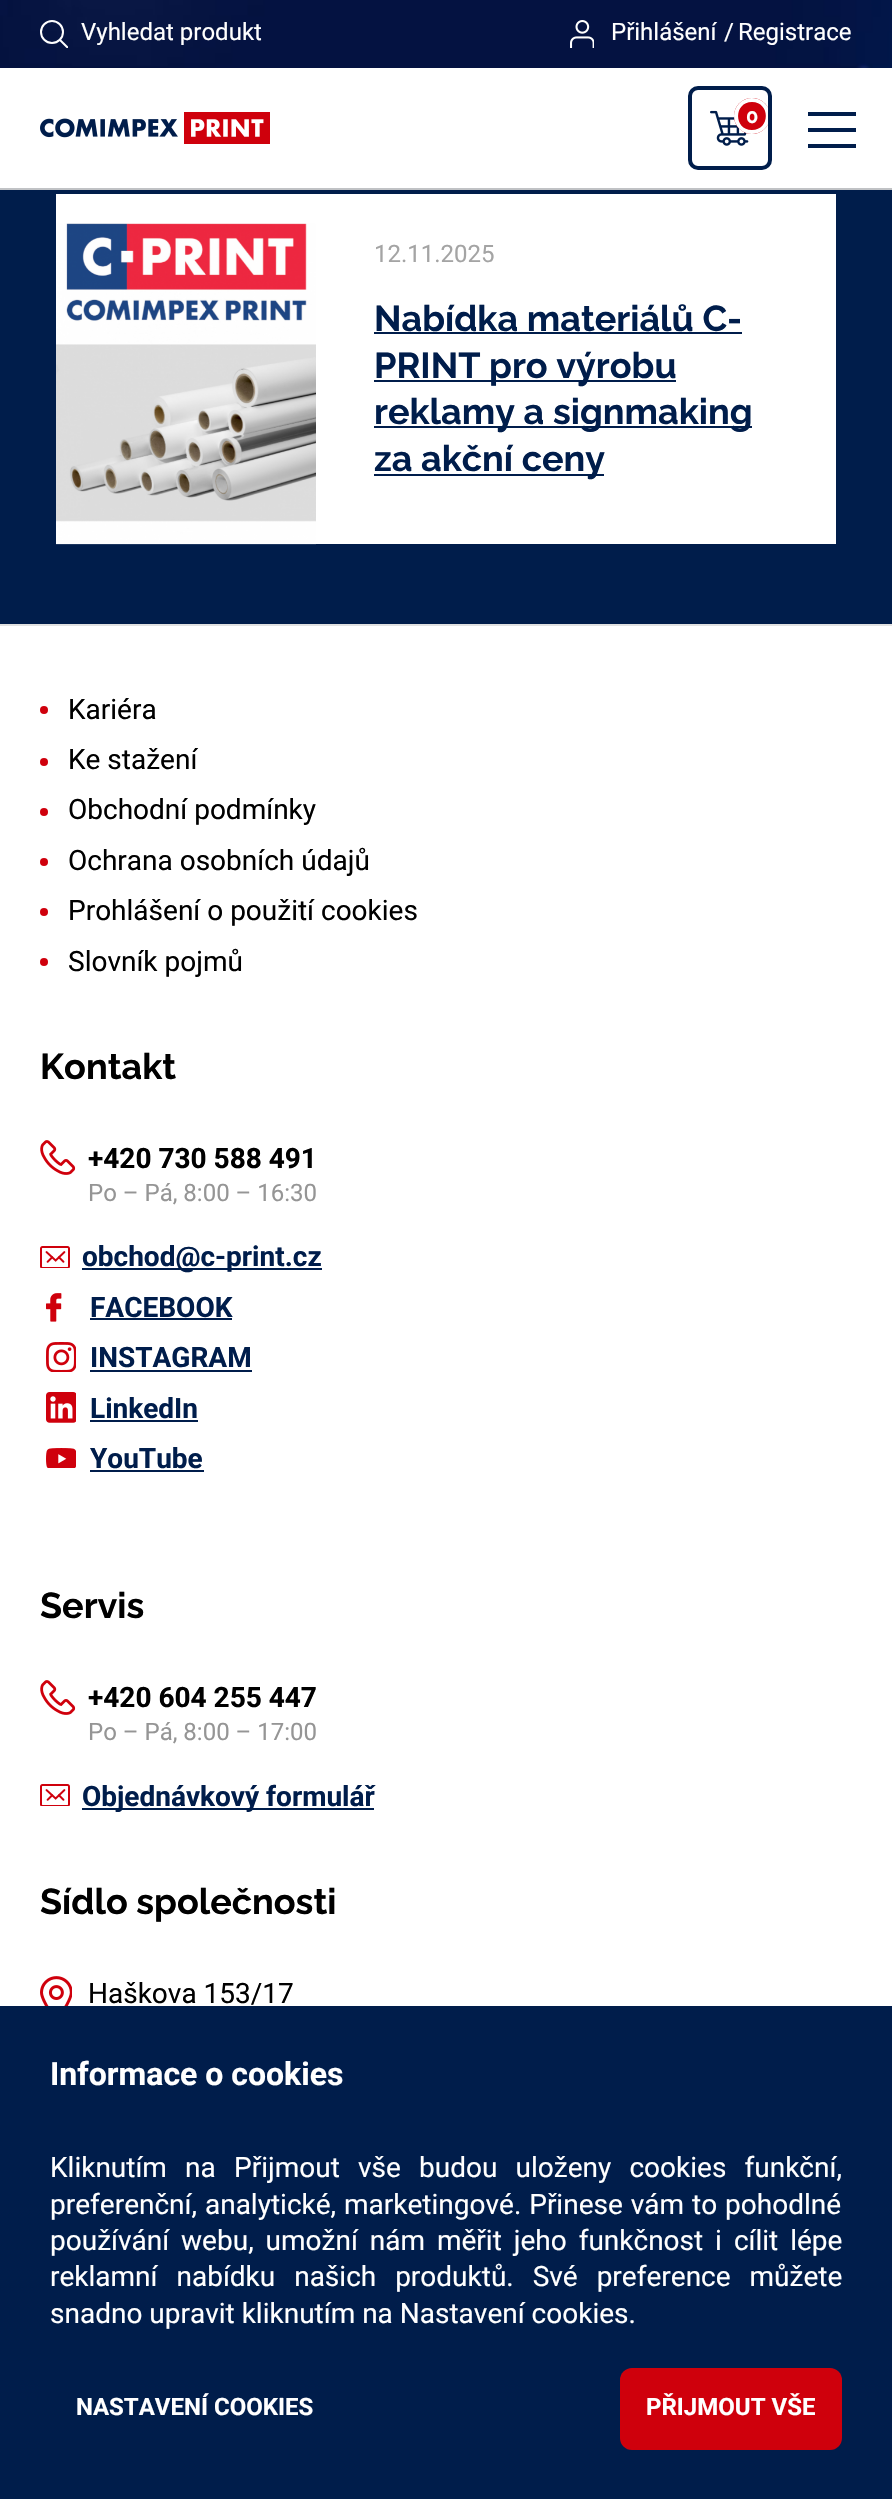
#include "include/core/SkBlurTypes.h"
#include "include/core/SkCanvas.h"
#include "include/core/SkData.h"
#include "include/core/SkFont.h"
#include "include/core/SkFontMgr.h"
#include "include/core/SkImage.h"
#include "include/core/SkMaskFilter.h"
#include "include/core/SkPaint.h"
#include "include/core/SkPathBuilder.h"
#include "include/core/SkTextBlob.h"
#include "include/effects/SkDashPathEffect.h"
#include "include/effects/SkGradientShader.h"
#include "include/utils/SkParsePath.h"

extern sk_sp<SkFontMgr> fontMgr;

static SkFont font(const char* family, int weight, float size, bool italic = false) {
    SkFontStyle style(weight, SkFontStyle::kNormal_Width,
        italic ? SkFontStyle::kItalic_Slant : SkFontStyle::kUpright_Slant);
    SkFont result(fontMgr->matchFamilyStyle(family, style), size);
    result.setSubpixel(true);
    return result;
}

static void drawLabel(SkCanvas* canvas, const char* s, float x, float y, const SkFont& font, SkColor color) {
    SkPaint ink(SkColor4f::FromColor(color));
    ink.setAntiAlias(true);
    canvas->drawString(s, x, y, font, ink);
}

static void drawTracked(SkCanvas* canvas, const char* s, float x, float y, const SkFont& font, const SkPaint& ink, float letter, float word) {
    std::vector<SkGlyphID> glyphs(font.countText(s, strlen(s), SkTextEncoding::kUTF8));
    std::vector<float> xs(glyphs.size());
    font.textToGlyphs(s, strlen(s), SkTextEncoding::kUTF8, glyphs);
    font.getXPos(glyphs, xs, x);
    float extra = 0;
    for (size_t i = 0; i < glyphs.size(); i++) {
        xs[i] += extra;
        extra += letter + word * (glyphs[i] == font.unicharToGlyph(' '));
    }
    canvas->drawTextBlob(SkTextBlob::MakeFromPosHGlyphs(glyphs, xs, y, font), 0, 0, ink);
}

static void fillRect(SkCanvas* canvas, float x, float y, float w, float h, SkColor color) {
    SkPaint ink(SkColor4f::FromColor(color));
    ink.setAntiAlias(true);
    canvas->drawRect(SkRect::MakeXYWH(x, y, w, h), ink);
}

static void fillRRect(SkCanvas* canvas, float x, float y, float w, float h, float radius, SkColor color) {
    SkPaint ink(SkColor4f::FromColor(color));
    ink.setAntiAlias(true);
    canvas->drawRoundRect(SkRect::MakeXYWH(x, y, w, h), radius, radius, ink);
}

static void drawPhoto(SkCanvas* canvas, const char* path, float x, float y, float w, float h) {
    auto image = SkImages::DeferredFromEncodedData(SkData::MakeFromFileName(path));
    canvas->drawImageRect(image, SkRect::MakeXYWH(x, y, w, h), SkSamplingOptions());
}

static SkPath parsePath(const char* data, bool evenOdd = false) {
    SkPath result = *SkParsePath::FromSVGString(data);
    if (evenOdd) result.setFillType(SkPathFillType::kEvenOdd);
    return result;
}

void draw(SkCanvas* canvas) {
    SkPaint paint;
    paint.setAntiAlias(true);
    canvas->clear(0xFFFFFFFF);
    drawPhoto(canvas, "assets/img1.png", 0, 0, 892, 68);
    paint.setStroke(true);
    paint.setStrokeWidth(2);
    paint.setColor(0xFFFFFFFF);
    canvas->drawCircle(52, 32, 11, paint);
    canvas->save();
    canvas->clipRect(SkRect::MakeXYWH(40, 20, 28, 28));
    canvas->drawPath(parsePath("M60 40L68 48"), paint);
    canvas->restore();
    SkFont font1 = font("Roboto", 400, 24);
    drawLabel(canvas, "Vyhledat produkt", 81, 40, font1, 0xFFFFFFFF);
    drawPhoto(canvas, "assets/img2.png", 570, 20, 24, 28);
    drawLabel(canvas, "Přihlášení", 611, 40, font1, 0xFFFFFFFF);
    drawLabel(canvas, "/", 724, 40, font1, 0xFFFFFFFF);
    drawLabel(canvas, "Registrace", 738, 40, font1, 0xFFFFFFFF);
    fillRect(canvas, 0, 188, 892, 2, 0xFFC0C2C5);
    drawPhoto(canvas, "assets/img3.png", 40, 112, 230, 32);
    paint.setStrokeWidth(4);
    paint.setColor(0xFF001D4B);
    canvas->drawRoundRect(SkRect::MakeXYWH(690, 88, 80, 80), 8, 8, paint);
    drawPhoto(canvas, "assets/img4.png", 710, 110, 39, 36);
    canvas->save();
    canvas->clipPath(parsePath("M698 90H762C765.5 90 768 92.5 768 96V160C768 163.5 765.5 166 762 166H698C694.5 166 692 163.5 692 160V96C692 92.5 694.5 90 698 90Z"), true);
    paint.setStroke(false);
    paint.setColor(0xFFCF000C);
    canvas->drawCircle(752, 116, 18, paint);
    canvas->restore();
    paint.setColor(0xFFFFFFFF);
    canvas->drawPath(parsePath("M752 98C759 98 765 102 768 107.5V124.5C765 130 759 134 752 134C742 134 734 126 734 116C734 106 742 98 752 98ZM752 102C733.5 102 733.5 130 752 130C770.5 130 770.5 102 752 102Z", true), paint);
    SkFont font2 = font("Raleway", 700, 20);
    drawLabel(canvas, "0", 746, 123, font2, 0xFFFFFFFF);
    fillRect(canvas, 808, 112, 48, 4, 0xFF001D4B);
    fillRect(canvas, 808, 128, 48, 4, 0xFF001D4B);
    fillRect(canvas, 808, 144, 48, 4, 0xFF001D4B);
    fillRect(canvas, 0, 190, 892, 434, 0xFF001D4B);
    fillRect(canvas, 56, 194, 780, 350, 0xFFFFFFFF);
    drawPhoto(canvas, "assets/img5.png", 56, 223, 260, 322);
    drawLabel(canvas, "12.11.2025", 374, 262, font1, 0xFFA4A4A4);
    SkFont font3 = font("Raleway", 700, 36);
    drawLabel(canvas, "Nabídka materiálů C-", 374, 331, font3, 0xFF001D4B);
    fillRect(canvas, 374, 332, 368, 2, 0xFF001D4B);
    fillRect(canvas, 374, 380, 302, 2, 0xFF001D4B);
    drawLabel(canvas, "PRINT pro výrobu", 374, 378, font3, 0xFF001D4B);
    fillRect(canvas, 374, 426, 378, 2, 0xFF001D4B);
    drawLabel(canvas, "reklamy a signmaking", 374, 424, font3, 0xFF001D4B);
    fillRect(canvas, 374, 474, 230, 2, 0xFF001D4B);
    drawLabel(canvas, "za akční ceny", 374, 471, font3, 0xFF001D4B);
    fillRect(canvas, 0, 624, 892, 2, 0xFFE1E1E1);
    paint.setColor(0xFFCF000C);
    canvas->drawCircle(44, 710, 4, paint);
    SkFont font4 = font("Roboto", 400, 28);
    drawLabel(canvas, "Kariéra", 68, 719, font4, 0xFF000000);
    canvas->drawCircle(44, 762, 4, paint);
    drawLabel(canvas, "Ke stažení", 68, 769, font4, 0xFF000000);
    canvas->drawCircle(44, 812, 4, paint);
    drawLabel(canvas, "Obchodní podmínky", 68, 819, font4, 0xFF000000);
    canvas->drawCircle(44, 862, 4, paint);
    drawLabel(canvas, "Ochrana osobních údajů", 68, 870, font4, 0xFF000000);
    canvas->drawCircle(44, 912, 4, paint);
    drawLabel(canvas, "Prohlášení o použití cookies", 68, 920, font4, 0xFF000000);
    canvas->drawCircle(44, 962, 4, paint);
    drawLabel(canvas, "Slovník pojmů", 68, 971, font4, 0xFF000000);
    drawLabel(canvas, "Kontakt", 40, 1079, font3, 0xFF000000);
    drawPhoto(canvas, "assets/img6.png", 40, 1140, 36, 35);
    SkFont font5 = font("Roboto", 700, 28);
    drawLabel(canvas, "+420 730 588 491", 88, 1168, font5, 0xFF000000);
    drawLabel(canvas, "Po – Pá, 8:00 – 16:30", 88, 1201, font1, 0xFF959595);
    drawPhoto(canvas, "assets/img7.png", 40, 1246, 30, 22);
    fillRect(canvas, 82, 1268, 240, 2, 0xFF001D4B);
    drawLabel(canvas, "obchod@c-print.cz", 82, 1266, font5, 0xFF001D4B);
    drawPhoto(canvas, "assets/img8.png", 46, 1293, 16, 29);
    drawLabel(canvas, "FACEBOOK", 90, 1317, font5, 0xFF001D4B);
    fillRect(canvas, 90, 1318, 142, 2, 0xFF001D4B);
    drawPhoto(canvas, "assets/img9.png", 46, 1342, 30, 30);
    drawLabel(canvas, "INSTAGRAM", 90, 1367, font5, 0xFF001D4B);
    fillRect(canvas, 90, 1370, 162, 2, 0xFF001D4B);
    drawPhoto(canvas, "assets/img10.png", 46, 1392, 30, 31);
    drawLabel(canvas, "LinkedIn", 90, 1418, font5, 0xFF001D4B);
    fillRect(canvas, 90, 1420, 108, 2, 0xFF001D4B);
    drawPhoto(canvas, "assets/img11.png", 46, 1448, 30, 20);
    drawLabel(canvas, "YouTube", 90, 1468, font5, 0xFF001D4B);
    fillRect(canvas, 90, 1470, 114, 2, 0xFF001D4B);
    drawLabel(canvas, "Servis", 40, 1618, font3, 0xFF000000);
    drawPhoto(canvas, "assets/img6.png", 40, 1680, 36, 35);
    drawLabel(canvas, "+420 604 255 447", 88, 1707, font5, 0xFF000000);
    drawLabel(canvas, "Po – Pá, 8:00 – 17:00", 88, 1740, font1, 0xFF959595);
    drawPhoto(canvas, "assets/img7.png", 40, 1784, 30, 22);
    fillRect(canvas, 82, 1808, 292, 2, 0xFF001D4B);
    drawLabel(canvas, "Objednávkový formulář", 82, 1806, font5, 0xFF001D4B);
    drawLabel(canvas, "Sídlo společnosti", 40, 1914, font3, 0xFF000000);
    drawPhoto(canvas, "assets/img12.png", 40, 1976, 32, 30);
    drawLabel(canvas, "Haškova 153/17", 88, 2003, font4, 0xFF000000);
    fillRect(canvas, 0, 2006, 892, 493, 0xFF001D4B);
    SkFont font6 = font("Roboto", 700, 32);
    drawLabel(canvas, "Informace o cookies", 50, 2085, font6, 0xFFFFFFFF);
    paint.setColor(0xFFFFFFFF);
    drawTracked(canvas, "Kliknutím na Přijmout vše budou uloženy cookies funkční,", 50, 2177, font4, paint, 0, 11.25f);
    drawTracked(canvas, "preferenční, analytické, marketingové. Přinese vám to pohodlné", 50, 2214, font4, paint, 0, 1);
    drawTracked(canvas, "používání webu, umožní nám měřit jeho funkčnost i cílit lépe", 50, 2250, font4, paint, 0, 5);
    drawTracked(canvas, "reklamní nabídku našich produktů. Své preference můžete", 50, 2286, font4, paint, 0, 12);
    drawLabel(canvas, "snadno upravit kliknutím na Nastavení cookies.", 50, 2323, font4, 0xFFFFFFFF);
    SkFont font7 = font("Roboto", 700, 24);
    drawLabel(canvas, "NASTAVENÍ COOKIES", 76, 2415, font7, 0xFFFFFFFF);
    fillRRect(canvas, 620, 2368, 222, 82, 12, 0xFFCF000C);
    drawLabel(canvas, "PŘIJMOUT VŠE", 646, 2415, font7, 0xFFFFFFFF);
}
